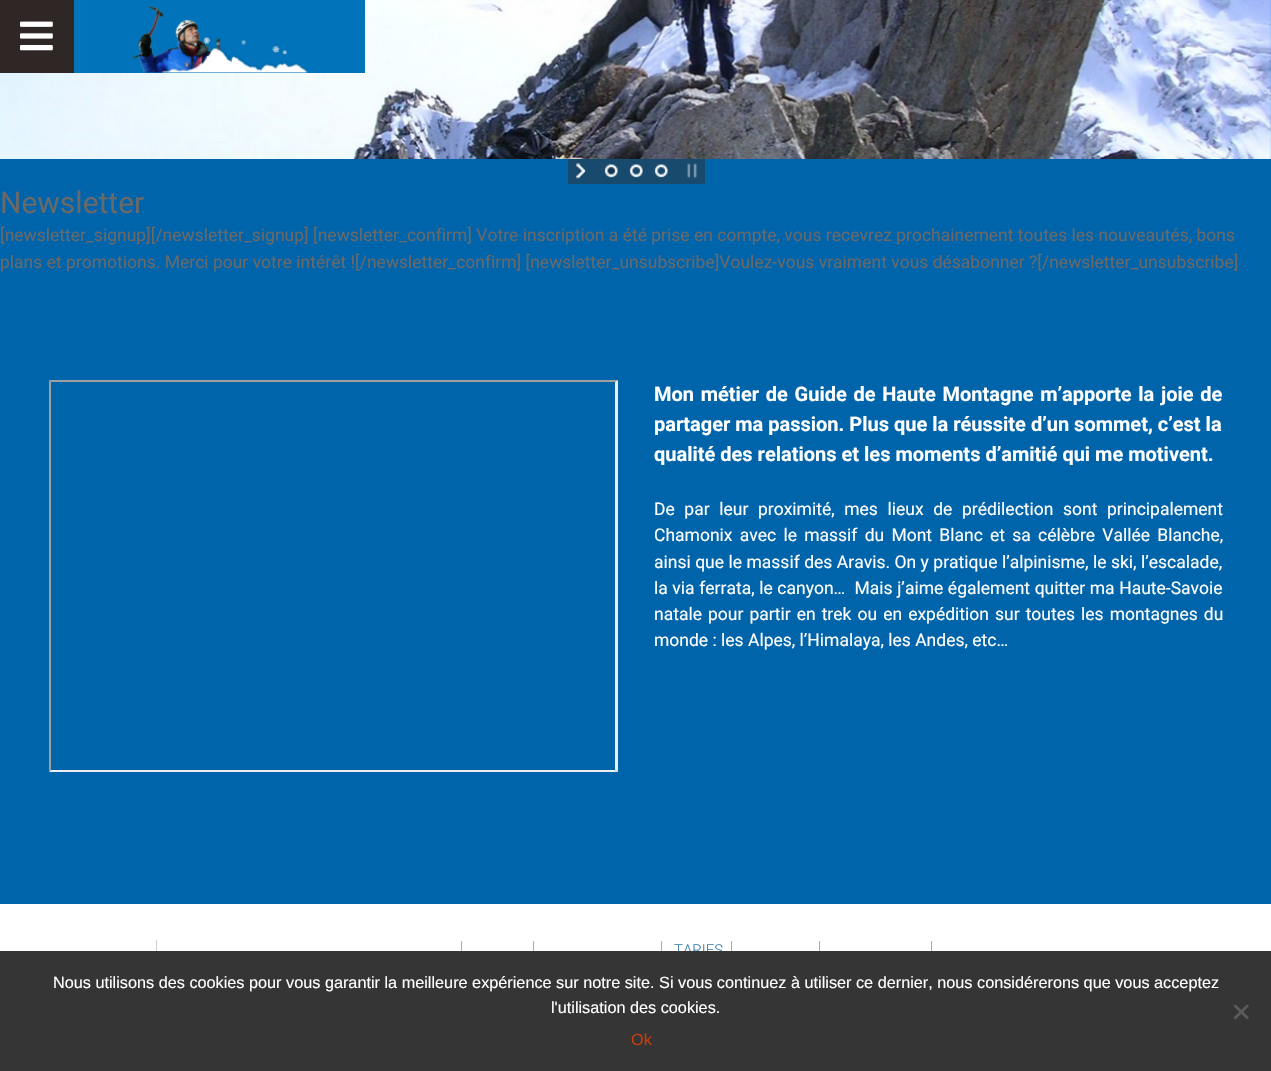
#include "include/core/SkBlurTypes.h"
#include "include/core/SkCanvas.h"
#include "include/core/SkData.h"
#include "include/core/SkFont.h"
#include "include/core/SkFontMgr.h"
#include "include/core/SkImage.h"
#include "include/core/SkMaskFilter.h"
#include "include/core/SkPaint.h"
#include "include/core/SkPathBuilder.h"
#include "include/core/SkTextBlob.h"
#include "include/effects/SkDashPathEffect.h"
#include "include/effects/SkGradientShader.h"
#include "include/utils/SkParsePath.h"

extern sk_sp<SkFontMgr> fontMgr;

static SkFont font(const char* family, int weight, float size, bool italic = false) {
    SkFontStyle style(weight, SkFontStyle::kNormal_Width,
        italic ? SkFontStyle::kItalic_Slant : SkFontStyle::kUpright_Slant);
    SkFont result(fontMgr->matchFamilyStyle(family, style), size);
    result.setSubpixel(true);
    return result;
}

static void drawLabel(SkCanvas* canvas, const char* s, float x, float y, const SkFont& font, SkColor color) {
    SkPaint ink(SkColor4f::FromColor(color));
    ink.setAntiAlias(true);
    canvas->drawString(s, x, y, font, ink);
}

static void drawTracked(SkCanvas* canvas, const char* s, float x, float y, const SkFont& font, const SkPaint& ink, float letter, float word) {
    std::vector<SkGlyphID> glyphs(font.countText(s, strlen(s), SkTextEncoding::kUTF8));
    std::vector<float> xs(glyphs.size());
    font.textToGlyphs(s, strlen(s), SkTextEncoding::kUTF8, glyphs);
    font.getXPos(glyphs, xs, x);
    float extra = 0;
    for (size_t i = 0; i < glyphs.size(); i++) {
        xs[i] += extra;
        extra += letter + word * (glyphs[i] == font.unicharToGlyph(' '));
    }
    canvas->drawTextBlob(SkTextBlob::MakeFromPosHGlyphs(glyphs, xs, y, font), 0, 0, ink);
}

static void fillRect(SkCanvas* canvas, float x, float y, float w, float h, SkColor color) {
    SkPaint ink(SkColor4f::FromColor(color));
    ink.setAntiAlias(true);
    canvas->drawRect(SkRect::MakeXYWH(x, y, w, h), ink);
}

static void drawPhoto(SkCanvas* canvas, const char* path, float x, float y, float w, float h) {
    auto image = SkImages::DeferredFromEncodedData(SkData::MakeFromFileName(path));
    canvas->drawImageRect(image, SkRect::MakeXYWH(x, y, w, h), SkSamplingOptions());
}

static SkPath parsePath(const char* data, bool evenOdd = false) {
    SkPath result = *SkParsePath::FromSVGString(data);
    if (evenOdd) result.setFillType(SkPathFillType::kEvenOdd);
    return result;
}

void draw(SkCanvas* canvas) {
    SkPaint paint;
    paint.setAntiAlias(true);
    canvas->clear(0xFF0064AB);
    drawPhoto(canvas, "assets/img1.png", 0, 0, 1271, 159);
    fillRect(canvas, 568, 159, 137, 25, 0xFF184A6E);
    drawPhoto(canvas, "assets/img2.png", 576, 163, 10, 17);
    drawPhoto(canvas, "assets/img3.png", 604, 164, 14, 16);
    drawPhoto(canvas, "assets/img4.png", 629, 164, 14, 16);
    drawPhoto(canvas, "assets/img4.png", 654, 164, 14, 16);
    drawPhoto(canvas, "assets/img5.png", 687, 163, 11, 16);
    fillRect(canvas, 0, 0, 74, 73, 0xFF2F2726);
    drawPhoto(canvas, "assets/img6.png", 20, 21, 33, 30);
    fillRect(canvas, 74, 0, 291, 73, 0xFF0073BB);
    drawPhoto(canvas, "assets/img7.png", 132, 5, 176, 68);
    SkFont font1 = font("Roboto", 400, 30);
    drawLabel(canvas, "Newsletter", 0, 213, font1, 0xFF696969);
    SkFont font2 = font("Roboto", 400, 17.5f);
    drawLabel(canvas, "[newsletter_signup][/newsletter_signup] [newsletter_confirm] Votre inscription a été prise en compte, vous recevrez prochainement toutes les nouveautés, bons", 0, 241, font2, 0xFF696969);
    drawLabel(canvas, "plans et promotions. Merci pour votre intérêt ![/newsletter_confirm] [newsletter_unsubscribe]Voulez-vous vraiment vous désabonner ?[/newsletter_unsubscribe]", 0, 268, font2, 0xFF696969);
    paint.setColor(0xFF9F9F9F);
    canvas->drawPath(parsePath("M49 380H618L615 382H51Z"), paint);
    paint.setColor(0xFFEEEEEE);
    canvas->drawPath(parsePath("M618 380V772L615 770V382Z"), paint);
    canvas->drawPath(parsePath("M618 772H49L51 770H615Z"), paint);
    paint.setColor(0xFF9F9F9F);
    canvas->drawPath(parsePath("M49 772V380L51 382V770Z"), paint);
    SkFont font3 = font("Roboto", 700, 20);
    paint.setColor(0xFFFFFFFF);
    drawTracked(canvas, "Mon métier de Guide de Haute Montagne m’apporte la joie de", 654, 401, font3, paint, 0, 1.75f);
    drawLabel(canvas, "partager ma passion. Plus que la réussite d’un sommet, c’est la", 654, 431, font3, 0xFFFFFFFF);
    drawLabel(canvas, "qualité des relations et les moments d’amitié qui me motivent.", 654, 461, font3, 0xFFFFFFFF);
    drawTracked(canvas, "De par leur proximité, mes lieux de prédilection sont principalement", 654, 515, font2, paint, 0, 5.25f);
    drawTracked(canvas, "Chamonix avec le massif du Mont Blanc et sa célèbre Vallée Blanche,", 654, 541, font2, paint, 0, 2.9f);
    drawTracked(canvas, "ainsi que le massif des Aravis. On y pratique l’alpinisme, le ski, l’escalade,", 654, 568, font2, paint, 0, 0.1f);
    drawTracked(canvas, "la via ferrata, le canyon…  Mais j’aime également quitter ma Haute-Savoie", 654, 594, font2, paint, 0, 0.25f);
    drawTracked(canvas, "natale pour partir en trek ou en expédition sur toutes les montagnes du", 654, 620, font2, paint, 0, 1.7f);
    drawLabel(canvas, "monde : les Alpes, l’Himalaya, les Andes, etc…", 654, 646, font2, 0xFFFFFFFF);
    fillRect(canvas, 0, 904, 1271, 47, 0xFFFFFFFF);
    fillRect(canvas, 156, 940, 1, 11, 0xFFCFCFCF);
    fillRect(canvas, 461, 941, 1, 18, 0xFF7CBBE8);
    fillRect(canvas, 533, 941, 1, 18, 0xFF7CBBE8);
    fillRect(canvas, 661, 941, 1, 18, 0xFF7CBBE8);
    SkFont font4 = font("Roboto", 300, 15);
    drawLabel(canvas, "TARIFS", 674, 955, font4, 0xFF377CAD);
    fillRect(canvas, 731, 941, 1, 18, 0xFF7CBBE8);
    fillRect(canvas, 819, 941, 1, 18, 0xFF7CBBE8);
    fillRect(canvas, 931, 941, 1, 18, 0xFF7CBBE8);
    fillRect(canvas, 0, 951, 1271, 120, 0xFF353535);
    SkFont font5 = font("Liberation Sans", 400, 16.25f);
    drawLabel(canvas, "Nous utilisons des cookies pour vous garantir la meilleure expérience sur notre site. Si vous continuez à utiliser ce dernier, nous considérerons que vous acceptez", 53, 988, font5, 0xFFFFFFFF);
    drawLabel(canvas, "l'utilisation des cookies.", 551, 1013, font5, 0xFFFFFFFF);
    paint.setColor(0xFF5B5B5B);
    canvas->drawPath(parsePath("M1247 1004.5L1249 1006L1235.5 1019.5L1233.5 1017.5Z"), paint);
    canvas->drawPath(parsePath("M1233.5 1006L1235.5 1004.5L1249 1017.5L1247 1019.5Z"), paint);
    drawLabel(canvas, "Ok", 631, 1045, font5, 0xFFCA3C08);
}
